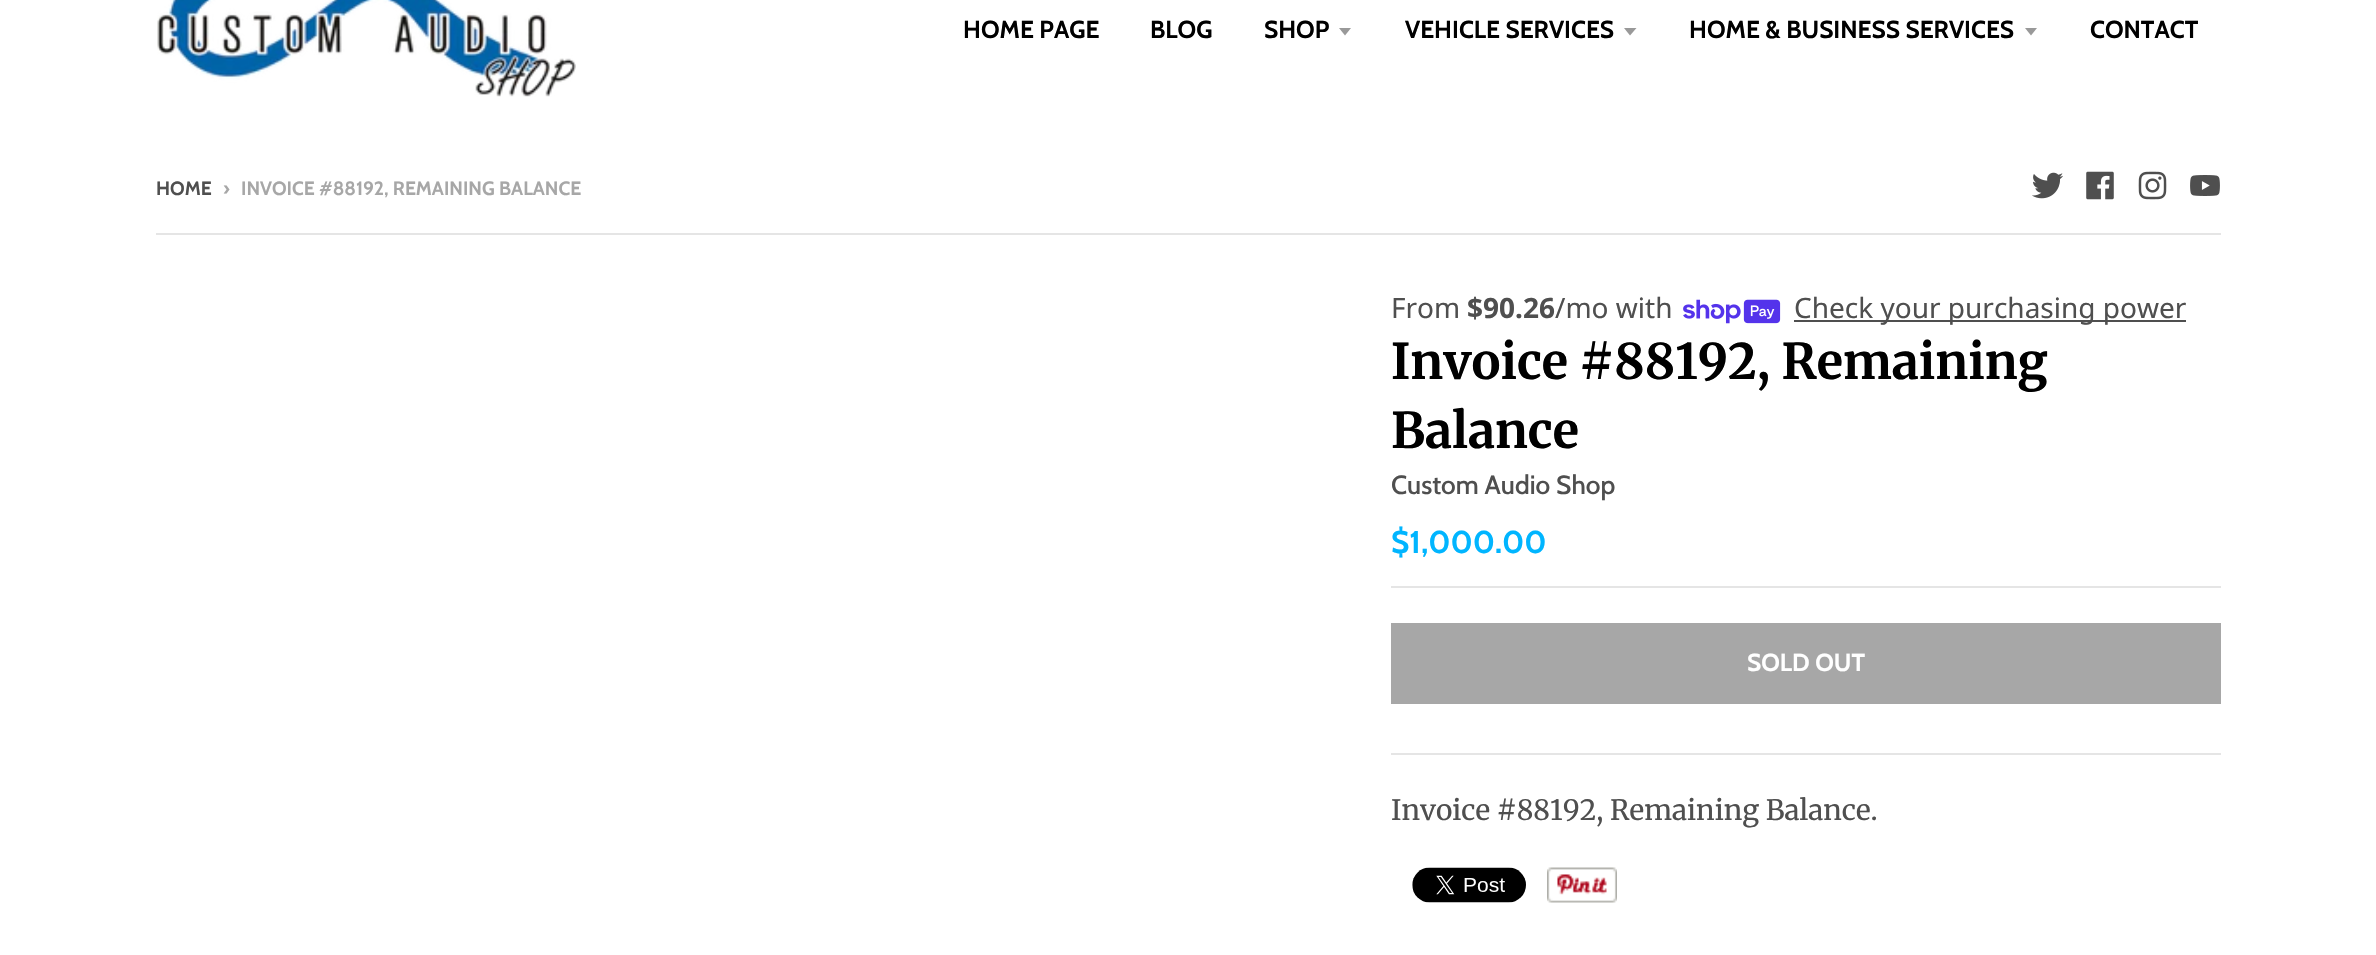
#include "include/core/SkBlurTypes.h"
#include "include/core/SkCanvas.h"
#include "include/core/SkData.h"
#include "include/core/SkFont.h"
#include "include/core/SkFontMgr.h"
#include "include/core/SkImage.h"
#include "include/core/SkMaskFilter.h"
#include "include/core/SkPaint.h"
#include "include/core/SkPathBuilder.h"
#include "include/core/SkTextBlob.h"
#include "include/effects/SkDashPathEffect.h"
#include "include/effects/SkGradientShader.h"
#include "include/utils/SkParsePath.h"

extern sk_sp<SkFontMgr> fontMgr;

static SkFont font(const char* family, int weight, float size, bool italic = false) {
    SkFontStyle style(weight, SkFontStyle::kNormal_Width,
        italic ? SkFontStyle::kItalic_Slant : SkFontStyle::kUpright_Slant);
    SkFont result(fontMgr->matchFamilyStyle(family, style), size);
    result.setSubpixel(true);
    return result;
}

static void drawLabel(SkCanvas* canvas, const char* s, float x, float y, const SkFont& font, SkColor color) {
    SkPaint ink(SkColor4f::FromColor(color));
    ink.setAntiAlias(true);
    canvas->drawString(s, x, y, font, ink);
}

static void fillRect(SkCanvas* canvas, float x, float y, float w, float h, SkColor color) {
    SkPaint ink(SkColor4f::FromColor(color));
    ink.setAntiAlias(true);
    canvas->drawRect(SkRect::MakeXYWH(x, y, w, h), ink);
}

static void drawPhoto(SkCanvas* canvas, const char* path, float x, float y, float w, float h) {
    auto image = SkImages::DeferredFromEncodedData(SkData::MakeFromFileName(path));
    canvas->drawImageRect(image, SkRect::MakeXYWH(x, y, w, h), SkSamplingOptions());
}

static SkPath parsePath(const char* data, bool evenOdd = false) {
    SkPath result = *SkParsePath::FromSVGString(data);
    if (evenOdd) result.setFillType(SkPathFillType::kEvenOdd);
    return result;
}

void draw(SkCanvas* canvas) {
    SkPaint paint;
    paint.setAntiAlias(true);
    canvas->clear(0xFFFFFFFF);
    drawPhoto(canvas, "assets/img1.png", 157, 0, 419, 97);
    SkFont font1 = font("Cabin", 700, 24.5f);
    drawLabel(canvas, "HOME PAGE", 963, 38, font1, 0xFF000000);
    drawLabel(canvas, "BLOG", 1150, 38, font1, 0xFF000000);
    drawLabel(canvas, "SHOP", 1264, 38, font1, 0xFF000000);
    paint.setColor(0xFF999999);
    canvas->drawPath(parsePath("M1339 28L1345 35.5L1351 28Z"), paint);
    drawLabel(canvas, "VEHICLE SERVICES", 1405, 38, font1, 0xFF000000);
    canvas->drawPath(parsePath("M1624 28L1630 35.5L1636.5 28Z"), paint);
    drawLabel(canvas, "HOME & BUSINESS SERVICES", 1689, 38, font1, 0xFF000000);
    canvas->drawPath(parsePath("M2025 28L2031 35.5L2037 28Z"), paint);
    drawLabel(canvas, "CONTACT", 2090, 38, font1, 0xFF000000);
    SkFont font2 = font("Cabin", 700, 19.25f);
    drawLabel(canvas, "HOME", 156, 195, font2, 0xFF4F4F4F);
    drawLabel(canvas, "›", 223, 195, font2, 0xFFA7A7A7);
    drawLabel(canvas, "INVOICE #88192, REMAINING BALANCE", 241, 195, font2, 0xFFA7A7A7);
    drawPhoto(canvas, "assets/img2.png", 2032, 172, 31, 27);
    drawPhoto(canvas, "assets/img3.png", 2086, 171, 28, 29);
    drawPhoto(canvas, "assets/img4.png", 2138, 171, 29, 29);
    drawPhoto(canvas, "assets/img5.png", 2190, 175, 30, 21);
    fillRect(canvas, 156, 233, 2065, 2, 0xFFE5E5E5);
    fillRect(canvas, 1391, 753, 830, 2, 0xFFE5E5E5);
    SkFont font3 = font("Noto Sans", 400, 28);
    drawLabel(canvas, "From", 1391, 318, font3, 0xFF4F4F4F);
    SkFont font4 = font("Noto Sans", 700, 28);
    drawLabel(canvas, "$90.26", 1467, 318, font4, 0xFF4F4F4F);
    drawLabel(canvas, "/mo with", 1555, 318, font3, 0xFF4F4F4F);
    drawPhoto(canvas, "assets/img6.png", 1683, 299, 98, 25);
    fillRect(canvas, 1794, 320, 392, 2, 0xFF4F4F4F);
    drawLabel(canvas, "Check your purchasing power", 1794, 318, font3, 0xFF4F4F4F);
    SkFont font5 = font("Merriweather", 700, 49);
    drawLabel(canvas, "Invoice #88192, Remaining", 1391, 379, font5, 0xFF000000);
    drawLabel(canvas, "Balance", 1391, 448, font5, 0xFF000000);
    SkFont font6 = font("Cabin", 500, 26.25f);
    drawLabel(canvas, "Custom Audio Shop", 1391, 494, font6, 0xFF4F4F4F);
    fillRect(canvas, 1391, 586, 830, 2, 0xFFE5E5E5);
    SkFont font7 = font("Cabin", 700, 31.5f);
    drawLabel(canvas, "$1,000.00", 1391, 553, font7, 0xFF00B5FF);
    fillRect(canvas, 1391, 623, 830, 81, 0xFFA7A7A7);
    drawLabel(canvas, "SOLD OUT", 1747, 671, font1, 0xFFFFFFFF);
    SkFont font8 = font("Merriweather", 400, 28);
    drawLabel(canvas, "Invoice #88192, Remaining Balance.", 1391, 820, font8, 0xFF4F4F4F);
    drawPhoto(canvas, "assets/img7.png", 1412, 867, 114, 36);
    drawPhoto(canvas, "assets/img8.png", 1547, 867, 70, 36);
}
